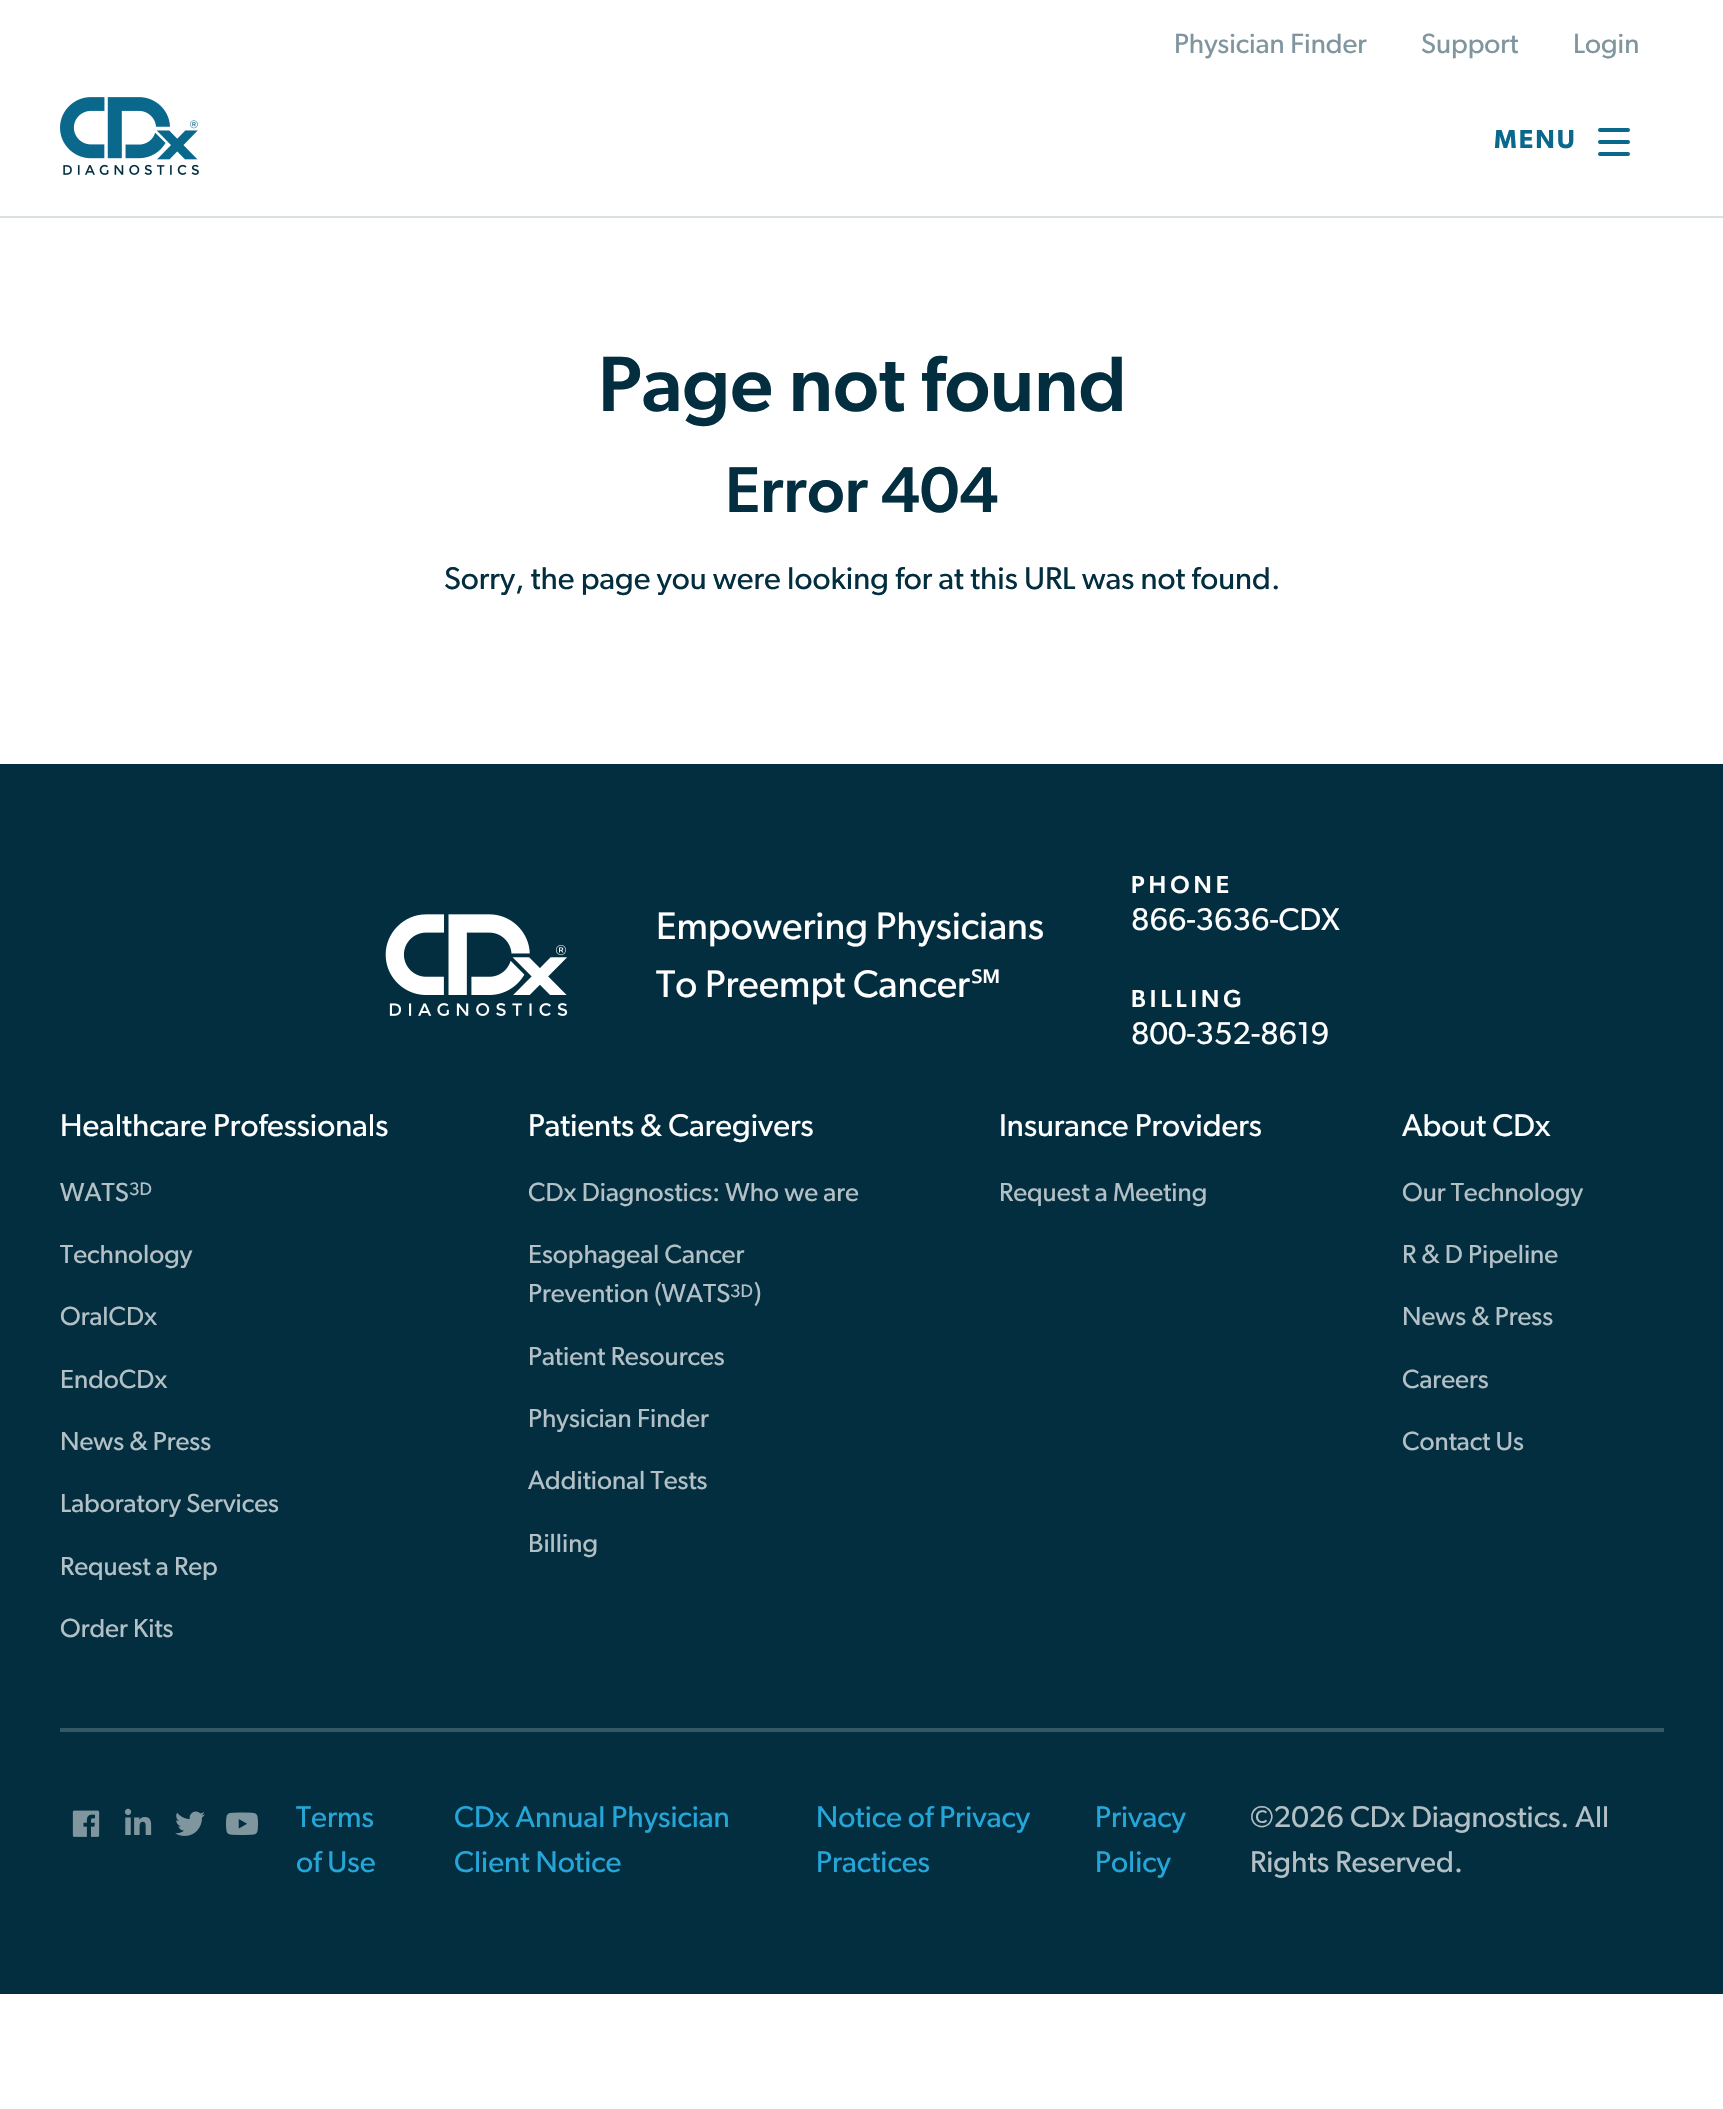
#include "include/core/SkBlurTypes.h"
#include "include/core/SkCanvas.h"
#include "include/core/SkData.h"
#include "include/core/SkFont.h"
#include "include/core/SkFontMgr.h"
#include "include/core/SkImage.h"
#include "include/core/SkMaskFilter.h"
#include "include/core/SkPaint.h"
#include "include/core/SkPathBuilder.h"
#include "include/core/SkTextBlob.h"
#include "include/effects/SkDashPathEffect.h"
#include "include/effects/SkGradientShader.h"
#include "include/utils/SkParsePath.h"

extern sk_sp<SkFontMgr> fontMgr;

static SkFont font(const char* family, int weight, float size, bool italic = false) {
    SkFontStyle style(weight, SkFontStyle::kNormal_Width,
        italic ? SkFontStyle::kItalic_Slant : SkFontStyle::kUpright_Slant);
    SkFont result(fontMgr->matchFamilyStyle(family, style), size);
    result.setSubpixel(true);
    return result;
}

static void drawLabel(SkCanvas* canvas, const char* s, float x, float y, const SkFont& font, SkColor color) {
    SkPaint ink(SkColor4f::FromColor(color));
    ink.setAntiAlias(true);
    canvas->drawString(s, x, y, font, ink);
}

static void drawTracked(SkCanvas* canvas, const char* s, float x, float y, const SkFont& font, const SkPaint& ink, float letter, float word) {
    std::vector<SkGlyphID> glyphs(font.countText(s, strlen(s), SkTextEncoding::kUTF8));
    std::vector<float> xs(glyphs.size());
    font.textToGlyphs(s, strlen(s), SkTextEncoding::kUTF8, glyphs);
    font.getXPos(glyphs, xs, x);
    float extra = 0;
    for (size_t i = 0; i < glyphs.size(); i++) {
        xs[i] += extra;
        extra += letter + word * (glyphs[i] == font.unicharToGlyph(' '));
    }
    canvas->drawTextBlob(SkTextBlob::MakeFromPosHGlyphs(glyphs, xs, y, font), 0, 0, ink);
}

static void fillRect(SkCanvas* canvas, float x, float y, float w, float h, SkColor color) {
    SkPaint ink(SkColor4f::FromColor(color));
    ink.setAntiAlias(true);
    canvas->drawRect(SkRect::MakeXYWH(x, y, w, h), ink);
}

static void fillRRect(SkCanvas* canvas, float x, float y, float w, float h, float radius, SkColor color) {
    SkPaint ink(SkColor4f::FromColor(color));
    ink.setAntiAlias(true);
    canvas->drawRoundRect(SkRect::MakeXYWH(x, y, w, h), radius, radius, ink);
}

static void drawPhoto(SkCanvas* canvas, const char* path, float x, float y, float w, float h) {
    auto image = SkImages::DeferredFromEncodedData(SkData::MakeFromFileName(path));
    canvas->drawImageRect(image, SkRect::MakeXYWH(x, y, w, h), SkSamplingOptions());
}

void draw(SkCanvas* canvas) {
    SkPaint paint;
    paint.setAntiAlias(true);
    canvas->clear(0xFFFFFFFF);
    fillRect(canvas, 0, 216, 1723, 2, 0xFFD9E0E3);
    SkFont font1 = font("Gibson", 400, 28);
    drawLabel(canvas, "Physician Finder", 1174, 53, font1, 0xFF80969F);
    drawLabel(canvas, "Support", 1421, 53, font1, 0xFF80969F);
    drawLabel(canvas, "Login", 1573, 53, font1, 0xFF80969F);
    drawPhoto(canvas, "assets/img1.png", 60, 97, 139, 78);
    SkFont font2 = font("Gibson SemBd", 600, 26);
    paint.setColor(0xFF0A688D);
    drawTracked(canvas, "MENU", 1494, 148, font2, paint, 2, 0);
    fillRRect(canvas, 1598, 140, 32, 4, 2, 0xFF0A688D);
    fillRRect(canvas, 1598, 128, 32, 4, 2, 0xFF0A688D);
    fillRRect(canvas, 1598, 152, 32, 4, 2, 0xFF0A688D);
    SkFont font3 = font("Gibson", 500, 78.75f);
    drawLabel(canvas, "Page not found", 598, 411, font3, 0xFF022E40);
    SkFont font4 = font("Gibson", 500, 64.75f);
    drawLabel(canvas, "Error 404", 725, 512, font4, 0xFF022E40);
    SkFont font5 = font("Gibson", 400, 31.5f);
    drawLabel(canvas, "Sorry, the page you were looking for at this URL was not found.", 444, 589, font5, 0xFF022E40);
    fillRect(canvas, 0, 764, 1723, 1230, 0xFF022E40);
    drawPhoto(canvas, "assets/img2.png", 385, 914, 183, 102);
    SkFont font6 = font("Gibson", 400, 38.5f);
    drawLabel(canvas, "Empowering Physicians", 656, 939, font6, 0xFFFFFFFF);
    drawLabel(canvas, "To Preempt Cancer", 656, 997, font6, 0xFFFFFFFF);
    SkFont font7 = font("Noto Sans", 400, 38.5f);
    drawLabel(canvas, "℠", 970, 997, font7, 0xFFFFFFFF);
    SkFont font8 = font("Gibson", 500, 24.5f);
    paint.setColor(0xFFFFFFFF);
    drawTracked(canvas, "PHONE", 1131, 893, font8, paint, 4, 0);
    drawLabel(canvas, "866-3636-CDX", 1131, 930, font5, 0xFFFFFFFF);
    drawTracked(canvas, "BILLING", 1131, 1007, font8, paint, 4, 0);
    drawLabel(canvas, "800-352-8619", 1131, 1044, font5, 0xFFFFFFFF);
    drawLabel(canvas, "Healthcare Professionals", 60, 1136, font5, 0xFFFFFFFF);
    SkFont font9 = font("Gibson", 400, 26.25f);
    drawLabel(canvas, "WATS", 60, 1201, font9, 0xFFB3C0C5);
    SkFont font10 = font("Gibson", 400, 18);
    drawLabel(canvas, "3D", 129, 1195, font10, 0xFFB3C0C5);
    drawLabel(canvas, "Technology", 60, 1263, font9, 0xFFB3C0C5);
    drawLabel(canvas, "OralCDx", 60, 1325, font9, 0xFFB3C0C5);
    drawLabel(canvas, "EndoCDx", 60, 1388, font9, 0xFFB3C0C5);
    drawLabel(canvas, "News & Press", 60, 1450, font9, 0xFFB3C0C5);
    drawLabel(canvas, "Laboratory Services", 60, 1512, font9, 0xFFB3C0C5);
    drawLabel(canvas, "Request a Rep", 60, 1575, font9, 0xFFB3C0C5);
    drawLabel(canvas, "Order Kits", 60, 1637, font9, 0xFFB3C0C5);
    drawLabel(canvas, "Patients & Caregivers", 528, 1136, font5, 0xFFFFFFFF);
    drawLabel(canvas, "CDx Diagnostics: Who we are", 528, 1201, font9, 0xFFB3C0C5);
    drawLabel(canvas, "Esophageal Cancer", 528, 1263, font9, 0xFFB3C0C5);
    drawLabel(canvas, "Prevention (WATS", 528, 1302, font9, 0xFFB3C0C5);
    drawLabel(canvas, "3D", 730, 1297, font10, 0xFFB3C0C5);
    drawLabel(canvas, ")", 754, 1302, font9, 0xFFB3C0C5);
    drawLabel(canvas, "Patient Resources", 528, 1365, font9, 0xFFB3C0C5);
    drawLabel(canvas, "Physician Finder", 528, 1427, font9, 0xFFB3C0C5);
    drawLabel(canvas, "Additional Tests", 528, 1489, font9, 0xFFB3C0C5);
    drawLabel(canvas, "Billing", 528, 1552, font9, 0xFFB3C0C5);
    drawLabel(canvas, "Insurance Providers", 999, 1136, font5, 0xFFFFFFFF);
    drawLabel(canvas, "Request a Meeting", 999, 1201, font9, 0xFFB3C0C5);
    drawLabel(canvas, "About CDx", 1402, 1136, font5, 0xFFFFFFFF);
    drawLabel(canvas, "Our Technology", 1402, 1201, font9, 0xFFB3C0C5);
    drawLabel(canvas, "R & D Pipeline", 1402, 1263, font9, 0xFFB3C0C5);
    drawLabel(canvas, "News & Press", 1402, 1325, font9, 0xFFB3C0C5);
    drawLabel(canvas, "Careers", 1402, 1388, font9, 0xFFB3C0C5);
    drawLabel(canvas, "Contact Us", 1402, 1450, font9, 0xFFB3C0C5);
    fillRect(canvas, 60, 1728, 1604, 4, 0xFF355866);
    drawPhoto(canvas, "assets/img3.png", 72, 1810, 28, 27);
    drawPhoto(canvas, "assets/img4.png", 124, 1808, 28, 27);
    drawPhoto(canvas, "assets/img5.png", 175, 1811, 30, 25);
    drawPhoto(canvas, "assets/img6.png", 226, 1812, 32, 23);
    SkFont font11 = font("Gibson", 400, 30);
    drawLabel(canvas, "Terms", 296, 1827, font11, 0xFF25A6D9);
    drawLabel(canvas, "of Use", 296, 1872, font11, 0xFF25A6D9);
    drawLabel(canvas, "CDx Annual Physician", 454, 1827, font11, 0xFF25A6D9);
    drawLabel(canvas, "Client Notice", 454, 1872, font11, 0xFF25A6D9);
    drawLabel(canvas, "Notice of Privacy", 816, 1827, font11, 0xFF25A6D9);
    drawLabel(canvas, "Practices", 816, 1872, font11, 0xFF25A6D9);
    drawLabel(canvas, "Privacy", 1095, 1827, font11, 0xFF25A6D9);
    drawLabel(canvas, "Policy", 1095, 1872, font11, 0xFF25A6D9);
    drawLabel(canvas, "©2026 CDx Diagnostics. All", 1250, 1827, font11, 0xFFB3C0C5);
    drawLabel(canvas, "Rights Reserved.", 1250, 1872, font11, 0xFFB3C0C5);
}
